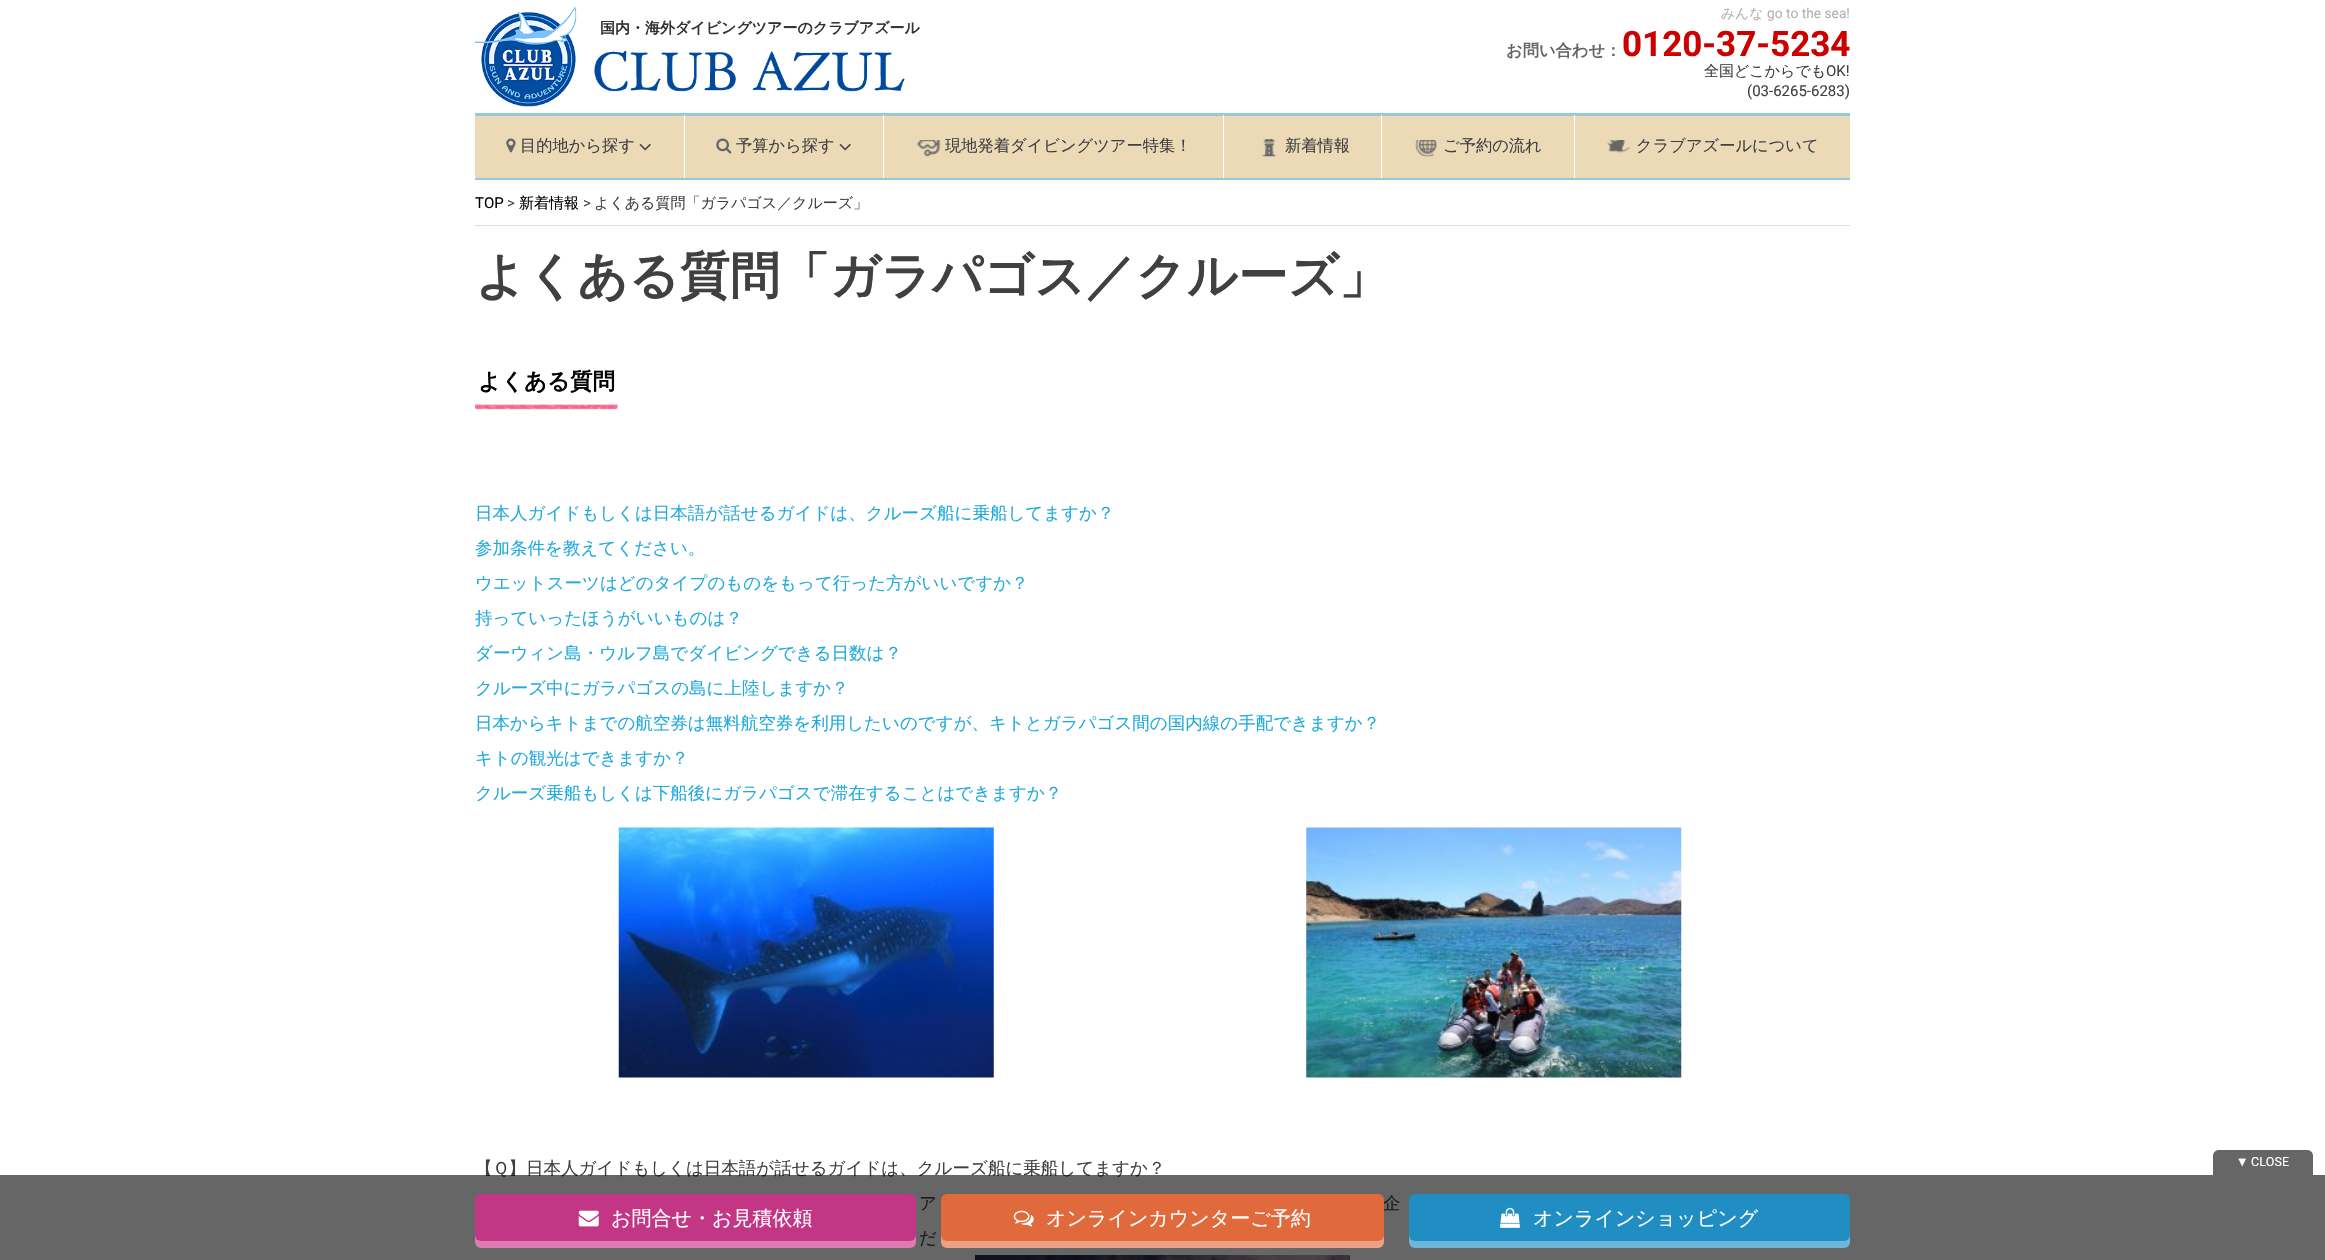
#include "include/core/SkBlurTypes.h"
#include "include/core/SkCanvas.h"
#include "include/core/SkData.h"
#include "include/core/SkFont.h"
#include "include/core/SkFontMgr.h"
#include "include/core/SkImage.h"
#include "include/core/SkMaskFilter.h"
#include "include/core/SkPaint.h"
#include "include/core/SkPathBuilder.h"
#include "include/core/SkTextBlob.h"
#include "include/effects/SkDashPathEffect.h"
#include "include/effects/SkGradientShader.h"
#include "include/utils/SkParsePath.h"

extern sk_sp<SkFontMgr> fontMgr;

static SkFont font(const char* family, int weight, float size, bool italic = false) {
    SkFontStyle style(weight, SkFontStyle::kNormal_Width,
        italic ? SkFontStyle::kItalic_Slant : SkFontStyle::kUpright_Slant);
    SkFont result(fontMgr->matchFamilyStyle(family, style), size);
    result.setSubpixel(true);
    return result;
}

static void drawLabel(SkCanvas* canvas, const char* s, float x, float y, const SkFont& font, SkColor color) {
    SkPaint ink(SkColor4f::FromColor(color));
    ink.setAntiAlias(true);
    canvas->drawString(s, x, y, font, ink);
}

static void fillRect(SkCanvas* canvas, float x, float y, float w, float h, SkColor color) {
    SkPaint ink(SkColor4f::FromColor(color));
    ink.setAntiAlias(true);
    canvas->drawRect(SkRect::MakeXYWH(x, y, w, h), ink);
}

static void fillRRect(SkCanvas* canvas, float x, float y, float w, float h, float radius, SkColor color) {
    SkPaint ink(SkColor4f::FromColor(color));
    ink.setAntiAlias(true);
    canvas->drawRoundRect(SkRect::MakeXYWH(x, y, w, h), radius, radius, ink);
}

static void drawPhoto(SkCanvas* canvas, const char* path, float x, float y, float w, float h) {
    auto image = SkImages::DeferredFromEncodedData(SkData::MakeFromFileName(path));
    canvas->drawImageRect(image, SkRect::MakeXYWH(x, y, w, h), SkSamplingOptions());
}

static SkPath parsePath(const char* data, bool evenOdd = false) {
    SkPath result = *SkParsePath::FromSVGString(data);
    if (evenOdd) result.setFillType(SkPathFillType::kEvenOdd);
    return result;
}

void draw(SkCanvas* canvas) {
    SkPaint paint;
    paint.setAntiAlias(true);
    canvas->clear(0xFFFFFFFF);
    drawPhoto(canvas, "assets/img1.png", 475, 6, 430, 101);
    SkFont font1 = font("WenQuanYi Zen Hei", 700, 15);
    drawLabel(canvas, "国内・海外ダイビングツアーのクラブアズール", 600, 33, font1, 0xFF333333);
    SkFont font2 = font("WenQuanYi Zen Hei", 500, 13.75f);
    drawLabel(canvas, "みんな", 1721, 18, font2, 0xFFB2B2B2);
    SkFont font3 = font("Roboto", 400, 13.75f);
    drawLabel(canvas, "go to the sea!", 1767, 18, font3, 0xFFB2B2B2);
    SkFont font4 = font("WenQuanYi Zen Hei", 700, 16.25f);
    drawLabel(canvas, "お問い合わせ：", 1506, 56, font4, 0xFF666666);
    SkFont font5 = font("Roboto", 700, 35);
    drawLabel(canvas, "0120-37-5234", 1622, 56, font5, 0xFFCC0000);
    SkFont font6 = font("WenQuanYi Zen Hei", 500, 15);
    drawLabel(canvas, "全国どこからでも", 1704, 76, font6, 0xFF404040);
    SkFont font7 = font("Roboto", 400, 15);
    drawLabel(canvas, "OK!", 1826, 76, font7, 0xFF404040);
    drawLabel(canvas, "(03-6265-6283)", 1747, 96, font7, 0xFF404040);
    fillRect(canvas, 475, 116, 1375, 62, 0xFFECDAB7);
    fillRect(canvas, 475, 113, 1375, 3, 0xFF94C9DF);
    fillRect(canvas, 475, 178, 1375, 2, 0xFF94C9DF);
    fillRect(canvas, 684, 115, 1, 63, 0xFFFFFFFF);
    drawPhoto(canvas, "assets/img2.png", 506, 138, 10, 15);
    SkFont font8 = font("WenQuanYi Zen Hei", 500, 16.25f);
    drawLabel(canvas, "目的地から探す", 520, 151, font8, 0xFF404040);
    drawPhoto(canvas, "assets/img3.png", 639, 143, 12, 8);
    fillRect(canvas, 883, 115, 1, 63, 0xFFFFFFFF);
    drawPhoto(canvas, "assets/img4.png", 716, 138, 16, 16);
    drawLabel(canvas, "予算から探す", 736, 151, font8, 0xFF404040);
    drawPhoto(canvas, "assets/img3.png", 839, 143, 12, 8);
    fillRect(canvas, 1223, 115, 1, 63, 0xFFFFFFFF);
    drawPhoto(canvas, "assets/img5.png", 917, 140, 24, 17);
    drawLabel(canvas, "現地発着ダイビングツアー特集！", 945, 151, font8, 0xFF404040);
    fillRect(canvas, 1381, 115, 1, 63, 0xFFFFFFFF);
    drawPhoto(canvas, "assets/img6.png", 1262, 139, 15, 18);
    drawLabel(canvas, "新着情報", 1285, 151, font8, 0xFF404040);
    fillRect(canvas, 1574, 115, 1, 63, 0xFFFFFFFF);
    drawPhoto(canvas, "assets/img7.png", 1415, 140, 22, 17);
    drawLabel(canvas, "ご予約の流れ", 1443, 151, font8, 0xFF404040);
    drawPhoto(canvas, "assets/img8.png", 1607, 140, 24, 13);
    drawLabel(canvas, "クラブアズールについて", 1636, 151, font8, 0xFF404040);
    fillRect(canvas, 475, 225, 1375, 1, 0xFFDDDDDD);
    drawLabel(canvas, "TOP", 475, 208, font7, 0xFF000000);
    drawLabel(canvas, ">", 507, 208, font7, 0xFF404040);
    drawLabel(canvas, "新着情報", 519, 208, font6, 0xFF000000);
    drawLabel(canvas, ">", 583, 208, font7, 0xFF404040);
    drawLabel(canvas, "よくある質問「ガラパゴス／クルーズ」", 594, 208, font6, 0xFF404040);
    SkFont font9 = font("WenQuanYi Zen Hei", 700, 50);
    drawLabel(canvas, "よくある質問「ガラパゴス／クルーズ」", 475, 293, font9, 0xFF404040);
    drawPhoto(canvas, "assets/img9.png", 475, 403, 143, 7);
    SkFont font10 = font("WenQuanYi Zen Hei", 700, 22.5f);
    drawLabel(canvas, "よくある質問", 478, 389, font10, 0xFF000000);
    SkFont font11 = font("WenQuanYi Zen Hei", 500, 17.5f);
    drawLabel(canvas, "日本人ガイドもしくは日本語が話せるガイドは、クルーズ船に乗船してますか？", 475, 519, font11, 0xFF22AADD);
    drawLabel(canvas, "参加条件を教えてください。", 475, 554, font11, 0xFF22AADD);
    drawLabel(canvas, "ウエットスーツはどのタイプのものをもって行った方がいいですか？", 475, 589, font11, 0xFF22AADD);
    drawLabel(canvas, "持っていったほうがいいものは？", 475, 624, font11, 0xFF22AADD);
    drawLabel(canvas, "ダーウィン島・ウルフ島でダイビングできる日数は？", 475, 659, font11, 0xFF22AADD);
    drawLabel(canvas, "クルーズ中にガラパゴスの島に上陸しますか？", 475, 694, font11, 0xFF22AADD);
    drawLabel(canvas, "日本からキトまでの航空券は無料航空券を利用したいのですが、キトとガラパゴス間の国内線の手配できますか？", 475, 729, font11, 0xFF22AADD);
    drawLabel(canvas, "キトの観光はできますか？", 475, 764, font11, 0xFF22AADD);
    drawLabel(canvas, "クルーズ乗船もしくは下船後にガラパゴスで滞在することはできますか？", 475, 799, font11, 0xFF22AADD);
    drawPhoto(canvas, "assets/img10.png", 618, 827, 376, 251);
    drawPhoto(canvas, "assets/img11.png", 1306, 827, 376, 251);
    drawLabel(canvas, "【Ｑ】日本人ガイドもしくは日本語が話せるガイドは、クルーズ船に乗船してますか？", 475, 1174, font11, 0xFF404040);
    drawLabel(canvas, "ア", 919, 1209, font11, 0xFF404040);
    drawLabel(canvas, "企", 1383, 1209, font11, 0xFF404040);
    drawLabel(canvas, "だ", 919, 1244, font11, 0xFF404040);
    drawPhoto(canvas, "assets/img12.png", 975, 1255, 375, 5);
    fillRect(canvas, 0, 1175, 2325, 85, 0x99000000);
    paint.setColor(0xFF666666);
    canvas->drawPath(parsePath("M2219 1150H2307C2310.5 1150 2313 1152.5 2313 1156V1175H2213V1156C2213 1152.5 2215.5 1150 2219 1150Z"), paint);
    SkFont font12 = font("Liberation Sans", 400, 12.5f);
    drawLabel(canvas, "▼", 2236, 1166, font12, 0xFFFFFFFF);
    SkFont font13 = font("Roboto", 400, 12.5f);
    drawLabel(canvas, "CLOSE", 2251, 1166, font13, 0xFFFFFFFF);
    fillRRect(canvas, 475, 1200, 441, 48, 6, 0xFFDB7BB1);
    fillRRect(canvas, 475, 1194, 441, 47, 6, 0xFFC23685);
    drawPhoto(canvas, "assets/img13.png", 578, 1210, 21, 17);
    SkFont font14 = font("WenQuanYi Zen Hei", 500, 20);
    drawLabel(canvas, "お問合せ・お見積依頼", 611, 1225, font14, 0xFFFFFFFF);
    fillRRect(canvas, 941, 1200, 443, 48, 6, 0xFFEDA184);
    fillRRect(canvas, 941, 1194, 443, 47, 6, 0xFFE06A3B);
    drawPhoto(canvas, "assets/img14.png", 1013, 1210, 21, 17);
    drawLabel(canvas, "オンラインカウンターご予約", 1046, 1225, font14, 0xFFFFFFFF);
    fillRRect(canvas, 1409, 1200, 441, 48, 6, 0xFF6EB7DB);
    fillRRect(canvas, 1409, 1194, 441, 47, 6, 0xFF208DC3);
    drawPhoto(canvas, "assets/img15.png", 1500, 1207, 20, 21);
    drawLabel(canvas, "オンラインショッピング", 1533, 1225, font14, 0xFFFFFFFF);
}
